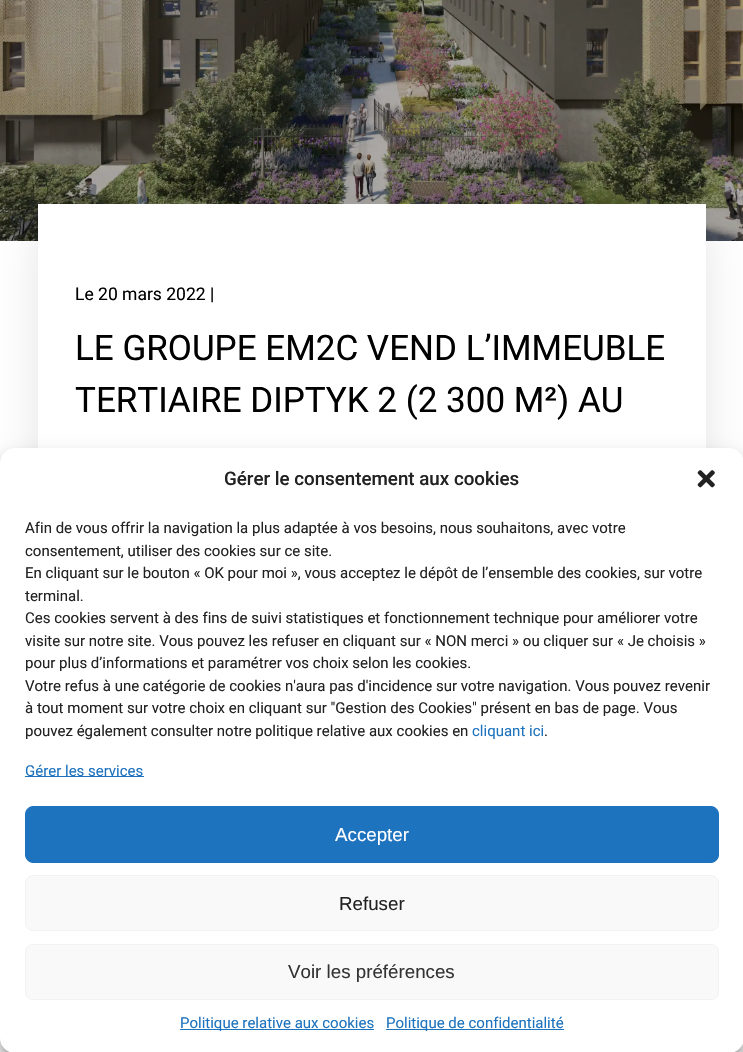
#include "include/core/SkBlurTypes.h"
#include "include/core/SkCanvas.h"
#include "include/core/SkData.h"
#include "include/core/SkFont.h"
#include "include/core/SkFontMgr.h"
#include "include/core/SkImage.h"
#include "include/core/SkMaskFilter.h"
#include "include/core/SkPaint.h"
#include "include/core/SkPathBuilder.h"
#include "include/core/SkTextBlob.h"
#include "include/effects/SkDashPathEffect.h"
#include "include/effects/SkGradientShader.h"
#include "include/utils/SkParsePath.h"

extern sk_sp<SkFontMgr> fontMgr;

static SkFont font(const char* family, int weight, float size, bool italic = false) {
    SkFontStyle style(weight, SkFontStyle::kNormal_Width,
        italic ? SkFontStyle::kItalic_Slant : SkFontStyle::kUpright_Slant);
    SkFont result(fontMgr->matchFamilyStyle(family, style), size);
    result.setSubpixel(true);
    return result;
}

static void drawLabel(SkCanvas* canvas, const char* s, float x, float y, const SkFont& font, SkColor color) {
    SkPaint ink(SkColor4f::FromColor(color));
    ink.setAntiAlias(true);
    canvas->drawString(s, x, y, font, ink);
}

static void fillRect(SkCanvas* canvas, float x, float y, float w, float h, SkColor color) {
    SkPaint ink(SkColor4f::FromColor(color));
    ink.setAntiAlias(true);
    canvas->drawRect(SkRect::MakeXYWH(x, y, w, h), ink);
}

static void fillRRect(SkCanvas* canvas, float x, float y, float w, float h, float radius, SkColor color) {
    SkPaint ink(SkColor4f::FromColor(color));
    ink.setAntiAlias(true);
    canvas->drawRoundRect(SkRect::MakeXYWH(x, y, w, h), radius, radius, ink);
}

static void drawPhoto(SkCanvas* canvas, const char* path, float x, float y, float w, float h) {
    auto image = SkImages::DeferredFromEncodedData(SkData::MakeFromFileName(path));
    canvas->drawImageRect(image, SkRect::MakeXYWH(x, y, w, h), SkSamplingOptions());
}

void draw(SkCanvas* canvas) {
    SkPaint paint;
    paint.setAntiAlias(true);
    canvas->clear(0xFFFFFFFF);
    drawPhoto(canvas, "assets/img1.png", 0, 0, 743, 241);
    paint.setColor(0x1A010101);
    paint.setMaskFilter(SkMaskFilter::MakeBlur(kNormal_SkBlurStyle, 19));
    canvas->drawRect(SkRect::MakeXYWH(38, 229, 668, 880), paint);
    paint.setMaskFilter(nullptr);
    fillRect(canvas, 38, 204, 668, 244, 0xFFFFFFFF);
    SkFont font1 = font("Roboto", 400, 17.5f);
    drawLabel(canvas, "Le 20 mars 2022 |", 75, 300, font1, 0xFF000000);
    SkFont font2 = font("Roboto", 400, 35);
    drawLabel(canvas, "LE GROUPE EM2C VEND L’IMMEUBLE", 75, 360, font2, 0xFF000000);
    drawLabel(canvas, "TERTIAIRE DIPTYK 2 (2 300 M²) AU", 75, 412, font2, 0xFF000000);
    paint.setColor(0x3B000000);
    paint.setMaskFilter(SkMaskFilter::MakeBlur(kNormal_SkBlurStyle, 4));
    canvas->drawRoundRect(SkRect::MakeXYWH(0, 455, 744, 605), 15, 15, paint);
    paint.setMaskFilter(nullptr);
    paint.setColor(0x30000000);
    paint.setMaskFilter(SkMaskFilter::MakeBlur(kNormal_SkBlurStyle, 12.5f));
    canvas->drawRoundRect(SkRect::MakeXYWH(0, 460, 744, 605), 15, 15, paint);
    paint.setMaskFilter(nullptr);
    fillRRect(canvas, 0, 448, 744, 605, 15, 0xFFFFFFFF);
    SkFont font3 = font("Roboto", 500, 18.75f);
    drawLabel(canvas, "Gérer le consentement aux cookies", 224, 485, font3, 0xFF222222);
    drawPhoto(canvas, "assets/img2.png", 697, 470, 18, 18);
    SkFont font4 = font("Roboto", 400, 15);
    drawLabel(canvas, "Afin de vous offrir la navigation la plus adaptée à vos besoins, nous souhaitons, avec votre", 25, 533, font4, 0xFF222222);
    drawLabel(canvas, "consentement, utiliser des cookies sur ce site.", 25, 556, font4, 0xFF222222);
    drawLabel(canvas, "En cliquant sur le bouton « OK pour moi », vous acceptez le dépôt de l’ensemble des cookies, sur votre", 25, 578, font4, 0xFF222222);
    drawLabel(canvas, "terminal.", 25, 601, font4, 0xFF222222);
    drawLabel(canvas, "Ces cookies servent à des fins de suivi statistiques et fonctionnement technique pour améliorer votre", 25, 623, font4, 0xFF222222);
    drawLabel(canvas, "visite sur notre site. Vous pouvez les refuser en cliquant sur « NON merci » ou cliquer sur « Je choisis »", 25, 646, font4, 0xFF222222);
    drawLabel(canvas, "pour plus d’informations et paramétrer vos choix selon les cookies.", 25, 668, font4, 0xFF222222);
    drawLabel(canvas, "Votre refus à une catégorie de cookies n'aura pas d'incidence sur votre navigation. Vous pouvez revenir", 25, 691, font4, 0xFF222222);
    drawLabel(canvas, "à tout moment sur votre choix en cliquant sur \"Gestion des Cookies\" présent en bas de page. Vous", 25, 713, font4, 0xFF222222);
    drawLabel(canvas, "pouvez également consulter notre politique relative aux cookies en", 25, 736, font4, 0xFF222222);
    drawLabel(canvas, "cliquant ici", 472, 736, font4, 0xFF1E73BE);
    drawLabel(canvas, ".", 544, 736, font4, 0xFF222222);
    fillRect(canvas, 25, 776, 119, 1, 0xFF1E73BE);
    drawLabel(canvas, "Gérer les services", 25, 776, font4, 0xFF1E73BE);
    paint.setColor(0xFF1E73BE);
    canvas->drawRoundRect(SkRect::MakeXYWH(25.5f, 806.5f, 693, 56), 7.5f, 7.5f, paint);
    paint.setStroke(true);
    paint.setStrokeWidth(1);
    canvas->drawRoundRect(SkRect::MakeXYWH(25.5f, 806.5f, 693, 56), 7.5f, 7.5f, paint);
    SkFont font5 = font("Liberation Sans", 400, 18.75f);
    drawLabel(canvas, "Accepter", 335, 841, font5, 0xFFFFFFFF);
    paint.setStroke(false);
    paint.setColor(0xFFF9F9F9);
    canvas->drawRoundRect(SkRect::MakeXYWH(25.5f, 875.5f, 693, 55), 7.5f, 7.5f, paint);
    paint.setStroke(true);
    paint.setColor(0xFFF2F2F2);
    canvas->drawRoundRect(SkRect::MakeXYWH(25.5f, 875.5f, 693, 55), 7.5f, 7.5f, paint);
    drawLabel(canvas, "Refuser", 339, 910, font5, 0xFF222222);
    paint.setStroke(false);
    paint.setColor(0xFFF9F9F9);
    canvas->drawRoundRect(SkRect::MakeXYWH(25.5f, 944.5f, 693, 55), 7.5f, 7.5f, paint);
    paint.setStroke(true);
    paint.setColor(0xFFF2F2F2);
    canvas->drawRoundRect(SkRect::MakeXYWH(25.5f, 944.5f, 693, 55), 7.5f, 7.5f, paint);
    drawLabel(canvas, "Voir les préférences", 288, 978, font5, 0xFF333333);
    fillRect(canvas, 180, 1029, 194, 1, 0xFF1E73BE);
    drawLabel(canvas, "Politique relative aux cookies", 180, 1028, font4, 0xFF1E73BE);
    fillRect(canvas, 386, 1029, 178, 1, 0xFF1E73BE);
    drawLabel(canvas, "Politique de confidentialité", 386, 1028, font4, 0xFF1E73BE);
}
